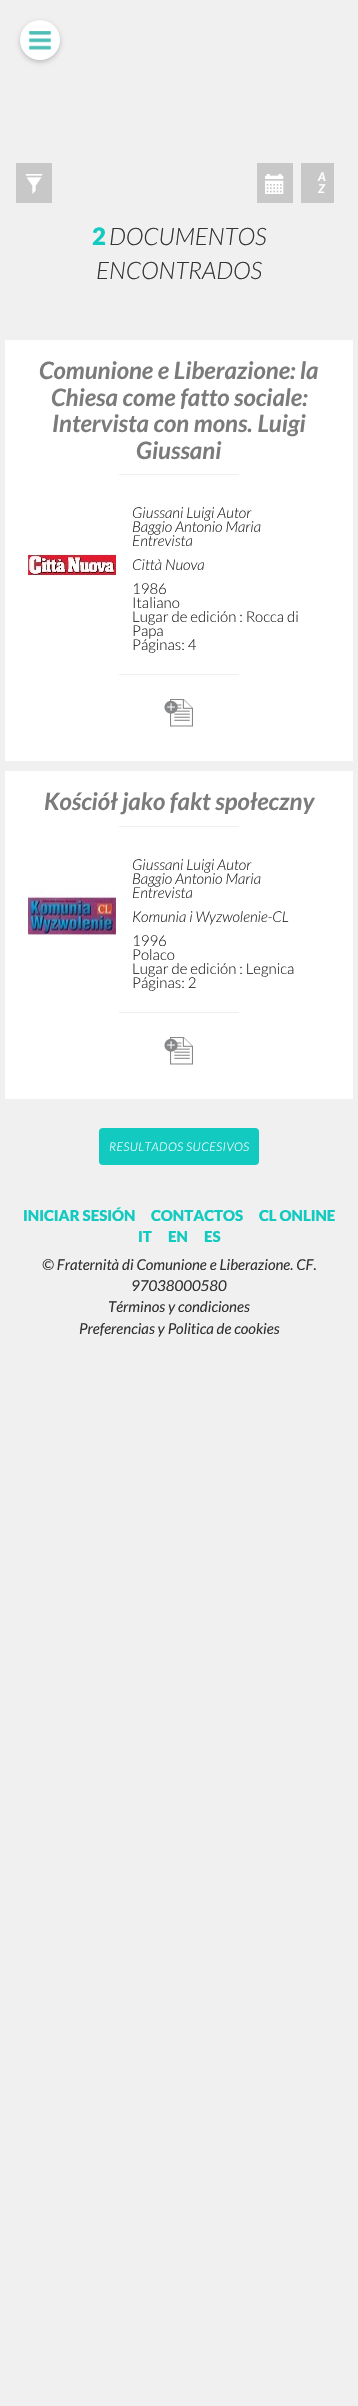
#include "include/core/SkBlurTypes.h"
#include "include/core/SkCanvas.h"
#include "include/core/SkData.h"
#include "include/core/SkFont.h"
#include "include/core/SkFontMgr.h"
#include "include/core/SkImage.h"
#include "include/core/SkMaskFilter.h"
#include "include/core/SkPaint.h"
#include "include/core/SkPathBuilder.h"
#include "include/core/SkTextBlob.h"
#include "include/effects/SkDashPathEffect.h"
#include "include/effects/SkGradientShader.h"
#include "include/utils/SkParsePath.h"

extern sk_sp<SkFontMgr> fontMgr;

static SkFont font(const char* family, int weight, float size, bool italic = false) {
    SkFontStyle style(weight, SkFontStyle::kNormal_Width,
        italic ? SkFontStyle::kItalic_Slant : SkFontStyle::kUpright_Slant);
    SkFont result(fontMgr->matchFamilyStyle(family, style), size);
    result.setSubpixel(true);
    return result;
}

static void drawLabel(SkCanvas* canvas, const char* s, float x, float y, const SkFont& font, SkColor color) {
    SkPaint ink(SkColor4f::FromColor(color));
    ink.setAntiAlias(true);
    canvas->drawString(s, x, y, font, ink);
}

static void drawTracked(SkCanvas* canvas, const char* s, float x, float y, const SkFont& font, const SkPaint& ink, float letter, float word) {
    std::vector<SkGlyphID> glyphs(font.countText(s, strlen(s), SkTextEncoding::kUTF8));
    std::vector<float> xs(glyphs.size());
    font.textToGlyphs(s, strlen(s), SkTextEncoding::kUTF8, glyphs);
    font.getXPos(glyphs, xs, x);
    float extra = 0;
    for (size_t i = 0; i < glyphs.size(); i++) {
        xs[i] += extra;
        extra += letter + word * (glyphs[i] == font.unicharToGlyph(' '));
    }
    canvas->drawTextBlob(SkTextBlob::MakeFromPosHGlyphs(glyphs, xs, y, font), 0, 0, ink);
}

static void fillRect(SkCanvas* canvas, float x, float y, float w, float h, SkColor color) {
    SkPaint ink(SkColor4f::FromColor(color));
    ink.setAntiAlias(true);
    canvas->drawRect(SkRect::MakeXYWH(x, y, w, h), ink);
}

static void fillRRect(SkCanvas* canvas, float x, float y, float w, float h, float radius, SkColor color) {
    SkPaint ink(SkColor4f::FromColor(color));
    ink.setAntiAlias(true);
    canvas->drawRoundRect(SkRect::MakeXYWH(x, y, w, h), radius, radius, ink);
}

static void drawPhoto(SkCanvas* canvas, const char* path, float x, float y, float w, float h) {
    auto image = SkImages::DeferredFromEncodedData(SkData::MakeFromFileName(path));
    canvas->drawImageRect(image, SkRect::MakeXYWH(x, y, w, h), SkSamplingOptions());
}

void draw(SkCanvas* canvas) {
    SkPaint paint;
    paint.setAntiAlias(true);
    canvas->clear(0xFFF0F0F0);
    paint.setColor(0x38000000);
    paint.setMaskFilter(SkMaskFilter::MakeBlur(kNormal_SkBlurStyle, 2.5f));
    canvas->drawRoundRect(SkRect::MakeXYWH(20, 22, 40, 40), 20, 20, paint);
    paint.setMaskFilter(nullptr);
    paint.setColor(0xFFFFFFFF);
    canvas->drawCircle(40, 40, 20, paint);
    drawPhoto(canvas, "assets/img1.png", 28, 31, 24, 19);
    fillRect(canvas, 16, 163, 36, 40, 0xFFC8C8C8);
    drawPhoto(canvas, "assets/img2.png", 25, 174, 18, 20);
    fillRect(canvas, 257, 163, 36, 40, 0xFFC8C8C8);
    drawPhoto(canvas, "assets/img3.png", 265, 174, 19, 20);
    fillRect(canvas, 301, 163, 33, 40, 0xFFC8C8C8);
    SkFont font1 = font("Lato", 700, 12, true);
    drawTracked(canvas, "A", 318, 181, font1, paint, 0.5f, 0);
    drawTracked(canvas, "Z", 318, 193, font1, paint, 0.5f, 0);
    SkFont font2 = font("Lato", 900, 24);
    drawLabel(canvas, "2", 92, 245, font2, 0xFF12CAC0);
    SkFont font3 = font("Lato", 300, 24, true);
    drawLabel(canvas, "DOCUMENTOS", 109, 245, font3, 0xFF333333);
    drawLabel(canvas, "ENCONTRADOS", 96, 279, font3, 0xFF333333);
    fillRect(canvas, 5, 340, 348, 421, 0xFFFFFFFF);
    SkFont font4 = font("Lato", 700, 24, true);
    drawLabel(canvas, "Comunione e Liberazione: la", 39, 379, font4, 0xFF7B7B7B);
    drawLabel(canvas, "Chiesa come fatto sociale:", 51, 406, font4, 0xFF7B7B7B);
    drawLabel(canvas, "Intervista con mons. Luigi", 52, 432, font4, 0xFF7B7B7B);
    drawLabel(canvas, "Giussani", 136, 459, font4, 0xFF7B7B7B);
    fillRect(canvas, 119, 474, 120, 1, 0xFFEEEEEE);
    drawPhoto(canvas, "assets/img4.png", 28, 554, 88, 22);
    SkFont font5 = font("Lato", 300, 15, true);
    drawLabel(canvas, "Giussani Luigi Autor", 132, 518, font5, 0xFF212121);
    drawLabel(canvas, "Baggio Antonio Maria", 132, 532, font5, 0xFF212121);
    drawLabel(canvas, "Entrevista", 132, 546, font5, 0xFF212121);
    drawLabel(canvas, "Città Nuova", 132, 570, font5, 0xFF212121);
    SkFont font6 = font("Lato", 300, 15);
    drawLabel(canvas, "1986", 132, 594, font6, 0xFF212121);
    drawLabel(canvas, "Italiano", 132, 608, font6, 0xFF212121);
    drawLabel(canvas, "Lugar de edición : Rocca di", 132, 622, font6, 0xFF212121);
    drawLabel(canvas, "Papa", 132, 636, font6, 0xFF212121);
    drawLabel(canvas, "Páginas: 4", 132, 650, font6, 0xFF212121);
    fillRect(canvas, 119, 674, 120, 1, 0xFFEEEEEE);
    drawPhoto(canvas, "assets/img5.png", 164, 699, 29, 28);
    fillRect(canvas, 5, 771, 348, 328, 0xFFFFFFFF);
    drawLabel(canvas, "Kościół jako fakt społeczny", 44, 810, font4, 0xFF7B7B7B);
    fillRect(canvas, 119, 826, 120, 1, 0xFFEEEEEE);
    drawPhoto(canvas, "assets/img6.png", 28, 889, 88, 48);
    drawLabel(canvas, "Giussani Luigi Autor", 132, 870, font5, 0xFF212121);
    drawLabel(canvas, "Baggio Antonio Maria", 132, 884, font5, 0xFF212121);
    drawLabel(canvas, "Entrevista", 132, 898, font5, 0xFF212121);
    drawLabel(canvas, "Komunia i Wyzwolenie-CL", 132, 922, font5, 0xFF212121);
    drawLabel(canvas, "1996", 132, 946, font6, 0xFF212121);
    drawLabel(canvas, "Polaco", 132, 960, font6, 0xFF212121);
    drawLabel(canvas, "Lugar de edición : Legnica", 132, 974, font6, 0xFF212121);
    drawLabel(canvas, "Páginas: 2", 132, 988, font6, 0xFF212121);
    fillRect(canvas, 119, 1012, 120, 1, 0xFFEEEEEE);
    drawPhoto(canvas, "assets/img5.png", 164, 1037, 29, 28);
    fillRRect(canvas, 99, 1128, 160, 37, 4, 0xFF12CAC0);
    SkFont font7 = font("Lato", 300, 12, true);
    drawTracked(canvas, "RESULTADOS SUCESIVOS", 109, 1151, font7, paint, 0.5f, 0);
    SkFont font8 = font("Lato", 900, 15);
    drawLabel(canvas, "INICIAR SESIÓN", 23, 1221, font8, 0xFF12CAC0);
    drawLabel(canvas, "CONTACTOS", 151, 1221, font8, 0xFF12CAC0);
    drawLabel(canvas, "CL ONLINE", 259, 1221, font8, 0xFF12CAC0);
    drawLabel(canvas, "IT", 138, 1242, font8, 0xFF12CAC0);
    drawLabel(canvas, "EN", 168, 1242, font8, 0xFF12CAC0);
    drawLabel(canvas, "ES", 204, 1242, font8, 0xFF12CAC0);
    SkFont font9 = font("Lato", 400, 15, true);
    drawLabel(canvas, "© Fraternità di Comunione e Liberazione. CF.", 42, 1270, font9, 0xFF333333);
    drawLabel(canvas, "97038000580", 131, 1291, font9, 0xFF333333);
    drawLabel(canvas, "Términos y condiciones", 108, 1312, font9, 0xFF333333);
    drawLabel(canvas, "Preferencias y Politica de cookies", 79, 1334, font9, 0xFF333333);
}
